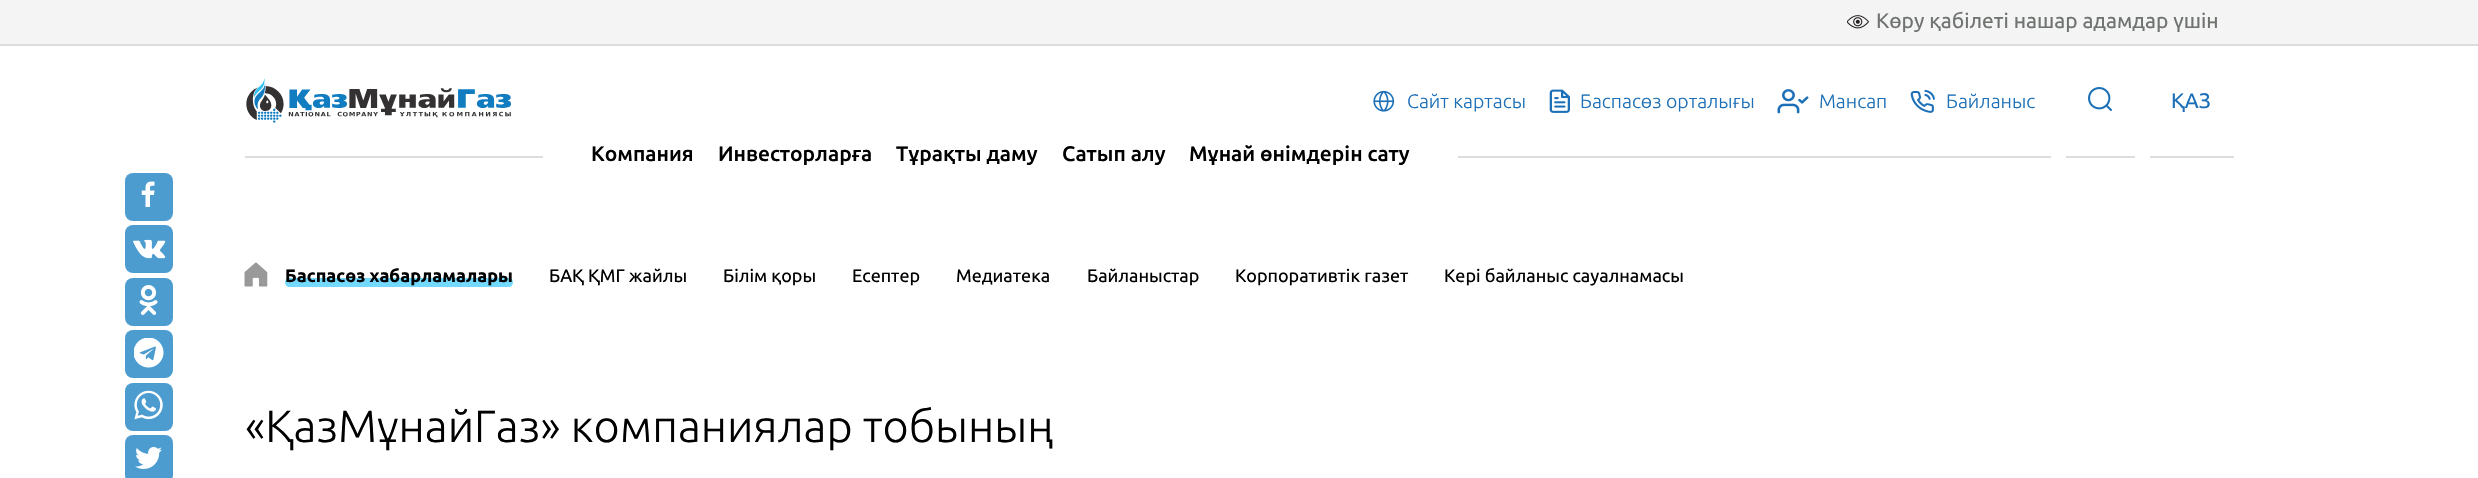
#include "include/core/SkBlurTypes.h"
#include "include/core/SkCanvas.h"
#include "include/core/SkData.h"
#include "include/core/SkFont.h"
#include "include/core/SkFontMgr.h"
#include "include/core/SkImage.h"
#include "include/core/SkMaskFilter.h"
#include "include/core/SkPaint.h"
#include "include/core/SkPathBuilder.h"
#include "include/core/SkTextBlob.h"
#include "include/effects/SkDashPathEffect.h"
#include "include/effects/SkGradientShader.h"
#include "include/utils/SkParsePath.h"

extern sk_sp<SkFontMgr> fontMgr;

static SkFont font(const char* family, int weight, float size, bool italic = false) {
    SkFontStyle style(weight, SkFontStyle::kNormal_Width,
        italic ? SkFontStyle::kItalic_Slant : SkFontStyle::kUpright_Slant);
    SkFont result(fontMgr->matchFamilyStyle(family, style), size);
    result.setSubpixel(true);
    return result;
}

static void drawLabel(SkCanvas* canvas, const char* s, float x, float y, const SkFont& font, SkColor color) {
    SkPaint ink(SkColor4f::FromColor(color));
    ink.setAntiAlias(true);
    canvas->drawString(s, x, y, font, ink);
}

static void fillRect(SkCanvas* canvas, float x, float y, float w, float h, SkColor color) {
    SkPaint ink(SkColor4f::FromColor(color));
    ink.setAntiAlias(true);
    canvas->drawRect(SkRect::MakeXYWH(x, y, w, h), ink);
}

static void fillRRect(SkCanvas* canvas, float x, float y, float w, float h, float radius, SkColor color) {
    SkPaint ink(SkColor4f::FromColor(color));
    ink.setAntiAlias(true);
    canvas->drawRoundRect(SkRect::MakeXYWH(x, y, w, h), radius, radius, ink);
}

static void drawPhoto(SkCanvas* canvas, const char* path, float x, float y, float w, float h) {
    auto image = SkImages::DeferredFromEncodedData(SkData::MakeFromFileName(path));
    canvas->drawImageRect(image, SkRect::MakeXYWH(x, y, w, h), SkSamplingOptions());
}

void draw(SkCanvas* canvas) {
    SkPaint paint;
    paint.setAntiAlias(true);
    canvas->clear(0xFFFFFFFF);
    fillRect(canvas, 0, 0, 2478, 44, 0xFFF4F4F4);
    fillRect(canvas, 0, 44, 2478, 2, 0xFFDDDBDB);
    drawPhoto(canvas, "assets/img1.png", 1847, 15, 22, 14);
    SkFont font1 = font("Ubuntu", 400, 21);
    drawLabel(canvas, "Көру қабілеті нашар адамдар үшін", 1876, 28, font1, 0xFF707471);
    fillRect(canvas, 245, 156, 298, 2, 0xFFDDDDDD);
    drawPhoto(canvas, "assets/img2.png", 288, 88, 223, 30);
    drawPhoto(canvas, "assets/img3.png", 246, 78, 38, 45);
    fillRect(canvas, 1458, 156, 593, 2, 0xFFDDDDDD);
    drawPhoto(canvas, "assets/img4.png", 1373, 90, 22, 22);
    SkFont font2 = font("Ubuntu", 300, 19.5f);
    drawLabel(canvas, "Сайт картасы", 1407, 108, font2, 0xFF1D70B7);
    drawPhoto(canvas, "assets/img5.png", 1549, 89, 21, 24);
    drawLabel(canvas, "Баспасөз орталығы", 1580, 108, font2, 0xFF1D70B7);
    drawPhoto(canvas, "assets/img6.png", 1777, 89, 32, 25);
    drawLabel(canvas, "Мансап", 1819, 108, font2, 0xFF1D70B7);
    drawPhoto(canvas, "assets/img7.png", 1910, 89, 25, 24);
    drawLabel(canvas, "Байланыс", 1946, 108, font2, 0xFF1D70B7);
    fillRect(canvas, 2066, 156, 69, 2, 0xFFDDDDDD);
    drawPhoto(canvas, "assets/img8.png", 2088, 87, 24, 24);
    fillRect(canvas, 2150, 156, 84, 2, 0xFFDDDDDD);
    drawLabel(canvas, "ҚАЗ", 2171, 108, font1, 0xFF1D70B7);
    SkFont font3 = font("Ubuntu", 500, 21);
    drawLabel(canvas, "Компания", 591, 161, font3, 0xFF000000);
    drawLabel(canvas, "Инвесторларға", 718, 161, font3, 0xFF000000);
    drawLabel(canvas, "Тұрақты даму", 896, 161, font3, 0xFF000000);
    drawLabel(canvas, "Сатып алу", 1062, 161, font3, 0xFF000000);
    drawLabel(canvas, "Мұнай өнімдерін сату", 1189, 161, font3, 0xFF000000);
    drawPhoto(canvas, "assets/img9.png", 244, 262, 24, 25);
    fillRRect(canvas, 285, 278, 228, 9, 4.5f, 0xFF74D9FF);
    SkFont font4 = font("Ubuntu", 700, 18);
    drawLabel(canvas, "Баспасөз хабарламалары", 285, 282, font4, 0xFF000000);
    SkFont font5 = font("Ubuntu", 400, 18);
    drawLabel(canvas, "БАҚ ҚМГ жайлы", 549, 282, font5, 0xFF000000);
    drawLabel(canvas, "Білім қоры", 723, 282, font5, 0xFF000000);
    drawLabel(canvas, "Есептер", 852, 282, font5, 0xFF000000);
    drawLabel(canvas, "Медиатека", 956, 282, font5, 0xFF000000);
    drawLabel(canvas, "Байланыстар", 1087, 282, font5, 0xFF000000);
    drawLabel(canvas, "Корпоративтік газет", 1235, 282, font5, 0xFF000000);
    drawLabel(canvas, "Кері байланыс сауалнамасы", 1444, 282, font5, 0xFF000000);
    fillRRect(canvas, 125, 173, 48, 48, 8, 0xFF4D9CD0);
    drawPhoto(canvas, "assets/img10.png", 141, 181, 14, 26);
    fillRRect(canvas, 125, 225, 48, 48, 8, 0xFF4D9CD0);
    drawPhoto(canvas, "assets/img11.png", 133, 239, 33, 20);
    fillRRect(canvas, 125, 278, 48, 48, 8, 0xFF4D9CD0);
    drawPhoto(canvas, "assets/img12.png", 139, 285, 19, 30);
    fillRRect(canvas, 125, 330, 48, 48, 8, 0xFF4D9CD0);
    drawPhoto(canvas, "assets/img13.png", 134, 338, 30, 30);
    fillRRect(canvas, 125, 383, 48, 48, 8, 0xFF4D9CD0);
    drawPhoto(canvas, "assets/img14.png", 134, 390, 29, 30);
    fillRRect(canvas, 125, 435, 48, 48, 8, 0xFF4D9CD0);
    drawPhoto(canvas, "assets/img15.png", 135, 447, 27, 22);
    SkFont font6 = font("Ubuntu", 300, 45);
    drawLabel(canvas, "«ҚазМұнайГаз» компаниялар тобының", 245, 442, font6, 0xFF000000);
}
